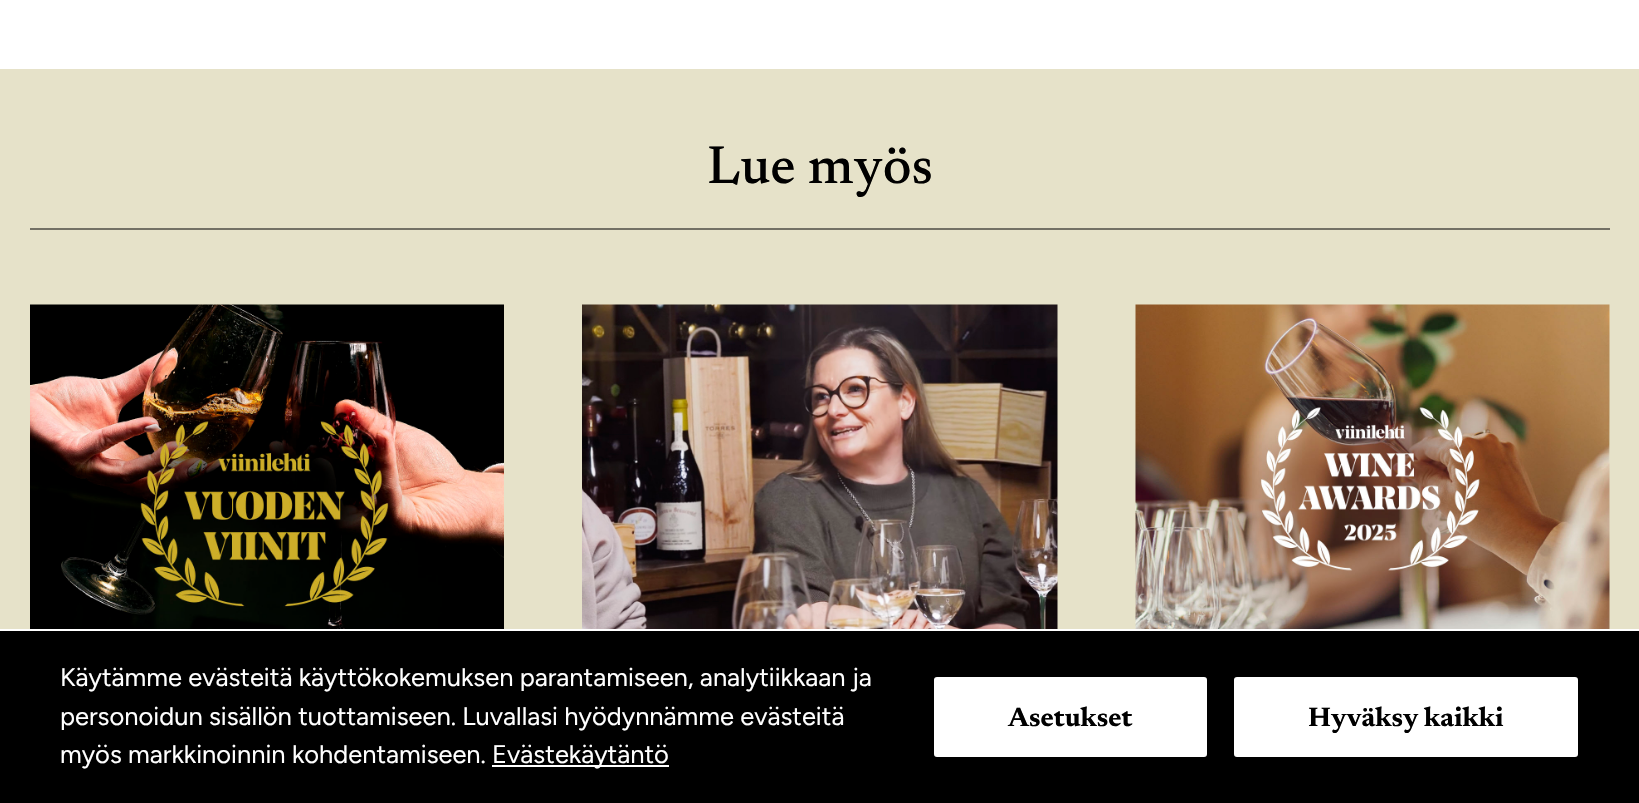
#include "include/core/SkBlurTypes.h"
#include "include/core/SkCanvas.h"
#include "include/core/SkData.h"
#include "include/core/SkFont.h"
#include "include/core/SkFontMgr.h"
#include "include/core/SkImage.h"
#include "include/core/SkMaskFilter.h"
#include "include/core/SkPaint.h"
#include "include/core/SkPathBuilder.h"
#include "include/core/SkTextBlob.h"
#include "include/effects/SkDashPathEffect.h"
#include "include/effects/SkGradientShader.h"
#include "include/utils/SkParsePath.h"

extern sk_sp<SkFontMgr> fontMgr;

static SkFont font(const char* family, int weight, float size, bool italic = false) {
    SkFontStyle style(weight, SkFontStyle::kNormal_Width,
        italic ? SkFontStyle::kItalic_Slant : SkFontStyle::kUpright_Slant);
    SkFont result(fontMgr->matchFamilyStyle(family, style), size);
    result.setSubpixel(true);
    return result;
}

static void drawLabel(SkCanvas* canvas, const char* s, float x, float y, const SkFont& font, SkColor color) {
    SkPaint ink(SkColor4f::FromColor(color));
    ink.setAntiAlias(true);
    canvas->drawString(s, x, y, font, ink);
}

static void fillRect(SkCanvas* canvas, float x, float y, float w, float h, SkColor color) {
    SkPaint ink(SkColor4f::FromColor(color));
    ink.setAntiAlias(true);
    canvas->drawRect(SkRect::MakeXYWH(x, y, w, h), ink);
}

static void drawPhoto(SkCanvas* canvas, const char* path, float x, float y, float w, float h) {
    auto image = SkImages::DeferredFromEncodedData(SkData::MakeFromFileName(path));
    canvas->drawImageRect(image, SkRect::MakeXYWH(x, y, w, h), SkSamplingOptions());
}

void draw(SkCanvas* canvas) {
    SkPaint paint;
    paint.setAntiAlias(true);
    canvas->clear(0xFFFFFFFF);
    fillRect(canvas, 0, 69, 1639, 560, 0xFFE6E2C9);
    fillRect(canvas, 30, 228, 1580, 2, 0xFF737165);
    SkFont font1 = font("Newsreader", 500, 54);
    drawLabel(canvas, "Lue myös", 707, 183, font1, 0xFF000000);
    drawPhoto(canvas, "assets/img1.png", 30, 304, 474, 325);
    drawPhoto(canvas, "assets/img2.png", 582, 304, 476, 325);
    drawPhoto(canvas, "assets/img3.png", 1135, 304, 475, 325);
    fillRect(canvas, 0, 631, 1639, 172, 0xFF000000);
    SkFont font2 = font("Figtree", 400, 25.5f);
    drawLabel(canvas, "Käytämme evästeitä käyttökokemuksen parantamiseen, analytiikkaan ja", 60, 686, font2, 0xFFFFFFFF);
    drawLabel(canvas, "personoidun sisällön tuottamiseen. Luvallasi hyödynnämme evästeitä", 60, 725, font2, 0xFFFFFFFF);
    drawLabel(canvas, "myös markkinoinnin kohdentamiseen.", 60, 763, font2, 0xFFFFFFFF);
    fillRect(canvas, 492, 765, 177, 2, 0xFFFFFFFF);
    drawLabel(canvas, "Evästekäytäntö", 492, 763, font2, 0xFFFFFFFF);
    paint.setColor(0xFFFFFFFF);
    canvas->drawRoundRect(SkRect::MakeXYWH(933, 676, 275, 82), 4, 4, paint);
    paint.setStroke(true);
    paint.setStrokeWidth(2);
    paint.setColor(0xFF000000);
    canvas->drawRoundRect(SkRect::MakeXYWH(933, 676, 275, 82), 4, 4, paint);
    SkFont font3 = font("Newsreader", 700, 27);
    drawLabel(canvas, "Asetukset", 1008, 726, font3, 0xFF000000);
    paint.setStroke(false);
    paint.setColor(0xFFFFFFFF);
    canvas->drawRoundRect(SkRect::MakeXYWH(1233, 676, 346, 82), 4, 4, paint);
    paint.setStroke(true);
    paint.setColor(0xFF000000);
    canvas->drawRoundRect(SkRect::MakeXYWH(1233, 676, 346, 82), 4, 4, paint);
    drawLabel(canvas, "Hyväksy kaikki", 1308, 726, font3, 0xFF000000);
}
